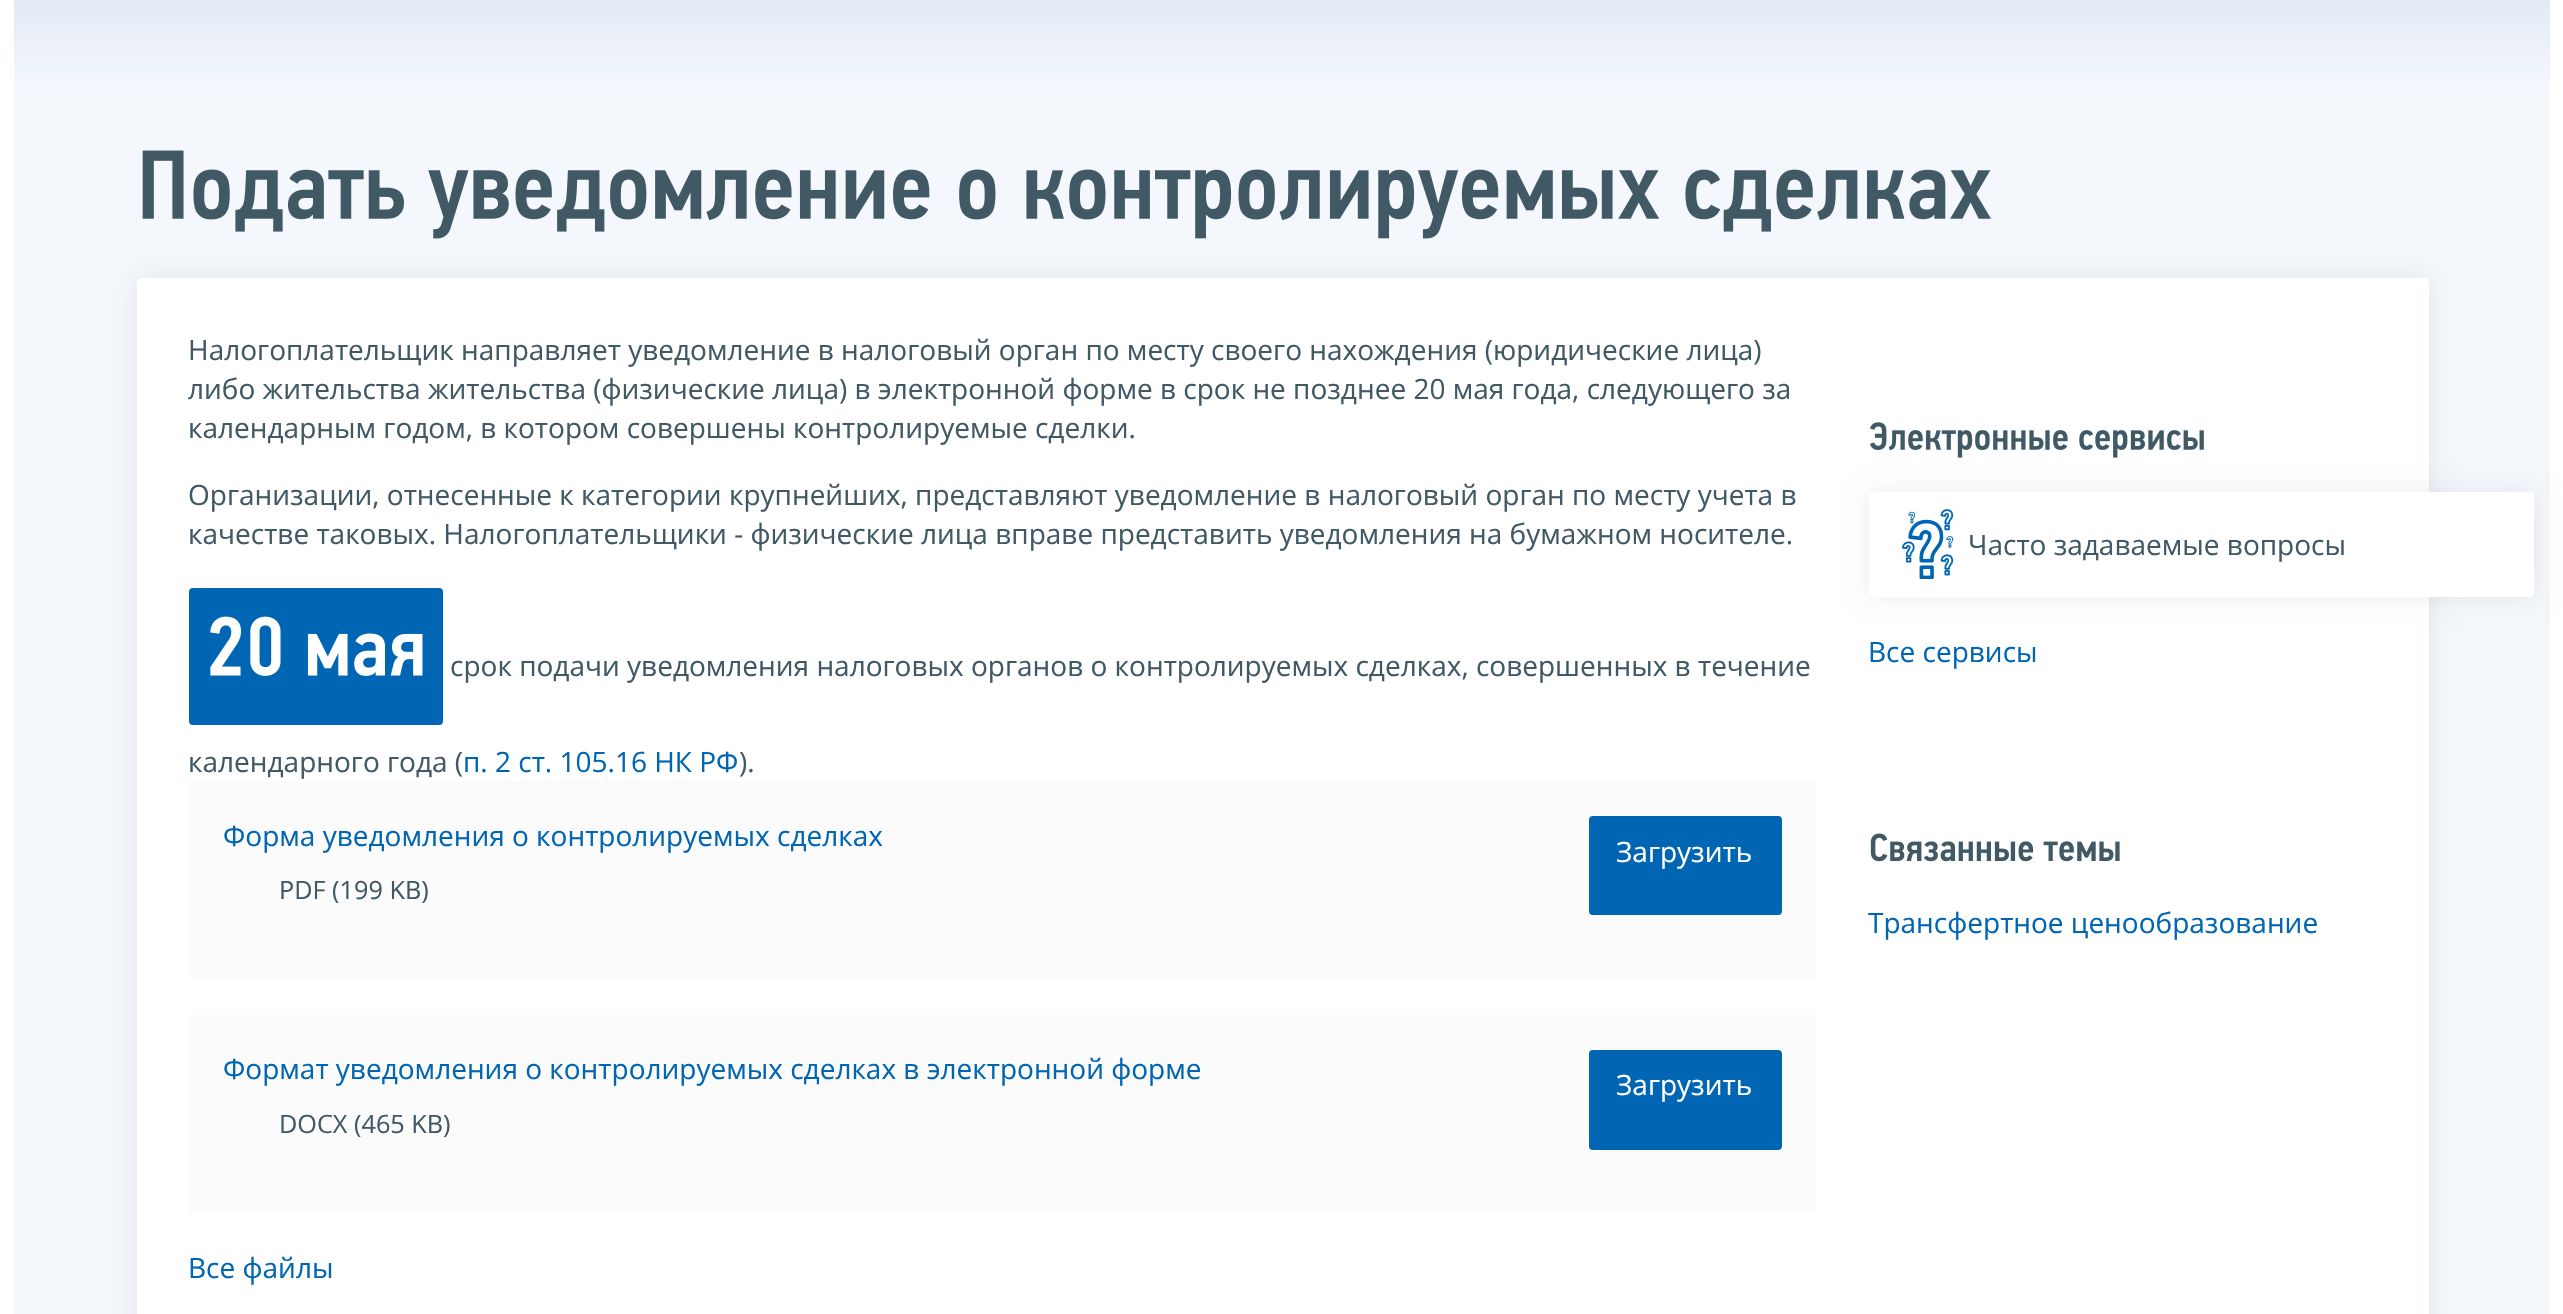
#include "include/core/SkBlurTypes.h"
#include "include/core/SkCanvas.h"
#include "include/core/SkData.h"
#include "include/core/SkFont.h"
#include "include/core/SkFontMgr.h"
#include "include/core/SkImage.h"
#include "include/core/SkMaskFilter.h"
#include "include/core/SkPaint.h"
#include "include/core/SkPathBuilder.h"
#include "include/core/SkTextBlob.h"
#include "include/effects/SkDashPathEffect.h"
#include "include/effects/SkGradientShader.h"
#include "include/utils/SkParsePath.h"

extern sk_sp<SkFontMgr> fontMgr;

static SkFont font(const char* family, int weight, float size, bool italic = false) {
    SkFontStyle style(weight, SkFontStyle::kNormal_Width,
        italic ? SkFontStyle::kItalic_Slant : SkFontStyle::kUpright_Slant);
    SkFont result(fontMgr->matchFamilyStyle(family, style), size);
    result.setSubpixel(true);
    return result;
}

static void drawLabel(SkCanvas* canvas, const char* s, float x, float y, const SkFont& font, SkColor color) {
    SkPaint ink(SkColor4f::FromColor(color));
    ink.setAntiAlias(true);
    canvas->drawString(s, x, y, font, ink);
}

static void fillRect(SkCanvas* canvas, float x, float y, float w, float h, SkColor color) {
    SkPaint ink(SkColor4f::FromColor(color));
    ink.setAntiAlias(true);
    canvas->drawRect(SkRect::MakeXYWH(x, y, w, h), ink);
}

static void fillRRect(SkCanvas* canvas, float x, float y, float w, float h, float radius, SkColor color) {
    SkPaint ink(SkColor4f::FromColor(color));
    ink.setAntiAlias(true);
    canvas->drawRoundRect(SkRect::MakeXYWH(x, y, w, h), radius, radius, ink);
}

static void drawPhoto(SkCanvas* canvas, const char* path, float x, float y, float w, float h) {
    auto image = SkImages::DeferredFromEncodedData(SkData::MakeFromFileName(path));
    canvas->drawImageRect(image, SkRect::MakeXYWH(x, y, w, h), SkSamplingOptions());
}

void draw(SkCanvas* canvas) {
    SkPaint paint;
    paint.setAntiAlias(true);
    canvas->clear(0xFFFFFFFF);
    fillRect(canvas, 14, 88, 2536, 1226, 0xFFF4F7FC);
    {
        const SkColor colors[] = {0xFFE2EAF6, 0xFFF4F7FC};
        const float stops[] = {0, 1};
        const SkPoint ends[] = {{1282, 0}, {1282, 88}};
        paint.setShader(SkGradientShader::MakeLinear(ends, colors, stops, 2, SkTileMode::kClamp));
        paint.setAlpha(255);
    }
    canvas->drawRect(SkRect::MakeXYWH(14, 0, 2536, 88), paint);
    paint.setShader(nullptr);
    paint.setColor(0x12000000);
    paint.setMaskFilter(SkMaskFilter::MakeBlur(kNormal_SkBlurStyle, 13));
    canvas->drawRoundRect(SkRect::MakeXYWH(137, 278, 2292, 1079), 4, 4, paint);
    paint.setMaskFilter(nullptr);
    drawPhoto(canvas, "assets/img1.png", 142, 150, 1849, 89);
    fillRRect(canvas, 137, 278, 2292, 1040, 4, 0xFFFFFFFF);
    SkFont font1 = font("Open Sans", 400, 28);
    drawLabel(canvas, "Налогоплательщик направляет уведомление в налоговый орган по месту своего нахождения (юридические лица)", 188, 360, font1, 0xFF405965);
    drawLabel(canvas, "либо жительства жительства (физические лица) в электронной форме в срок не позднее 20 мая года, следующего за", 188, 399, font1, 0xFF405965);
    drawLabel(canvas, "календарным годом, в котором совершены контролируемые сделки.", 188, 438, font1, 0xFF405965);
    drawLabel(canvas, "Организации, отнесенные к категории крупнейших, представляют уведомление в налоговый орган по месту учета в", 188, 505, font1, 0xFF405965);
    drawLabel(canvas, "качестве таковых. Налогоплательщики - физические лица вправе представить уведомления на бумажном носителе.", 188, 544, font1, 0xFF405965);
    fillRRect(canvas, 189, 588, 254, 137, 4, 0xFF0066B3);
    drawPhoto(canvas, "assets/img2.png", 210, 616, 213, 60);
    drawLabel(canvas, "срок подачи уведомления налоговых органов о контролируемых сделках, совершенных в течение", 450, 676, font1, 0xFF405965);
    drawLabel(canvas, "календарного года (", 188, 772, font1, 0xFF405965);
    drawLabel(canvas, "п. 2 ст. 105.16 НК РФ", 463, 772, font1, 0xFF0066B3);
    drawLabel(canvas, ").", 739, 772, font1, 0xFF405965);
    fillRRect(canvas, 189, 781, 1628, 199, 4, 0xFFFBFBFB);
    drawLabel(canvas, "Форма уведомления о контролируемых сделках", 223, 846, font1, 0xFF0066B3);
    SkFont font2 = font("Open Sans", 400, 25.25f);
    drawLabel(canvas, "PDF (199 KB)", 279, 899, font2, 0xFF405965);
    paint.setColor(0xFF0066B3);
    canvas->drawRoundRect(SkRect::MakeXYWH(1590, 817, 191, 97), 3, 3, paint);
    paint.setStroke(true);
    paint.setStrokeWidth(2);
    canvas->drawRoundRect(SkRect::MakeXYWH(1590, 817, 191, 97), 3, 3, paint);
    drawLabel(canvas, "Загрузить", 1616, 862, font1, 0xFFFFFFFF);
    fillRRect(canvas, 189, 1015, 1628, 198, 4, 0xFFFBFBFB);
    drawLabel(canvas, "Формат уведомления о контролируемых сделках в электронной форме", 223, 1079, font1, 0xFF0066B3);
    drawLabel(canvas, "DOCX (465 KB)", 279, 1133, font2, 0xFF405965);
    paint.setStroke(false);
    canvas->drawRoundRect(SkRect::MakeXYWH(1590, 1051, 191, 98), 3, 3, paint);
    paint.setStroke(true);
    canvas->drawRoundRect(SkRect::MakeXYWH(1590, 1051, 191, 98), 3, 3, paint);
    drawLabel(canvas, "Загрузить", 1616, 1095, font1, 0xFFFFFFFF);
    drawLabel(canvas, "Все файлы", 188, 1278, font1, 0xFF0066B3);
    paint.setStroke(false);
    paint.setColor(0x12000000);
    paint.setMaskFilter(SkMaskFilter::MakeBlur(kNormal_SkBlurStyle, 13));
    canvas->drawRoundRect(SkRect::MakeXYWH(1869, 492, 665, 105), 4, 4, paint);
    paint.setMaskFilter(nullptr);
    drawPhoto(canvas, "assets/img3.png", 1870, 422, 334, 36);
    fillRRect(canvas, 1869, 492, 665, 105, 4, 0xFFFFFFFF);
    drawPhoto(canvas, "assets/img4.png", 1902, 509, 52, 70);
    drawLabel(canvas, "Часто задаваемые вопросы", 1968, 555, font1, 0xFF405965);
    drawLabel(canvas, "Все сервисы", 1868, 662, font1, 0xFF0066B3);
    drawPhoto(canvas, "assets/img5.png", 1870, 833, 250, 29);
    drawLabel(canvas, "Трансфертное ценообразование", 1868, 933, font1, 0xFF0066B3);
}
